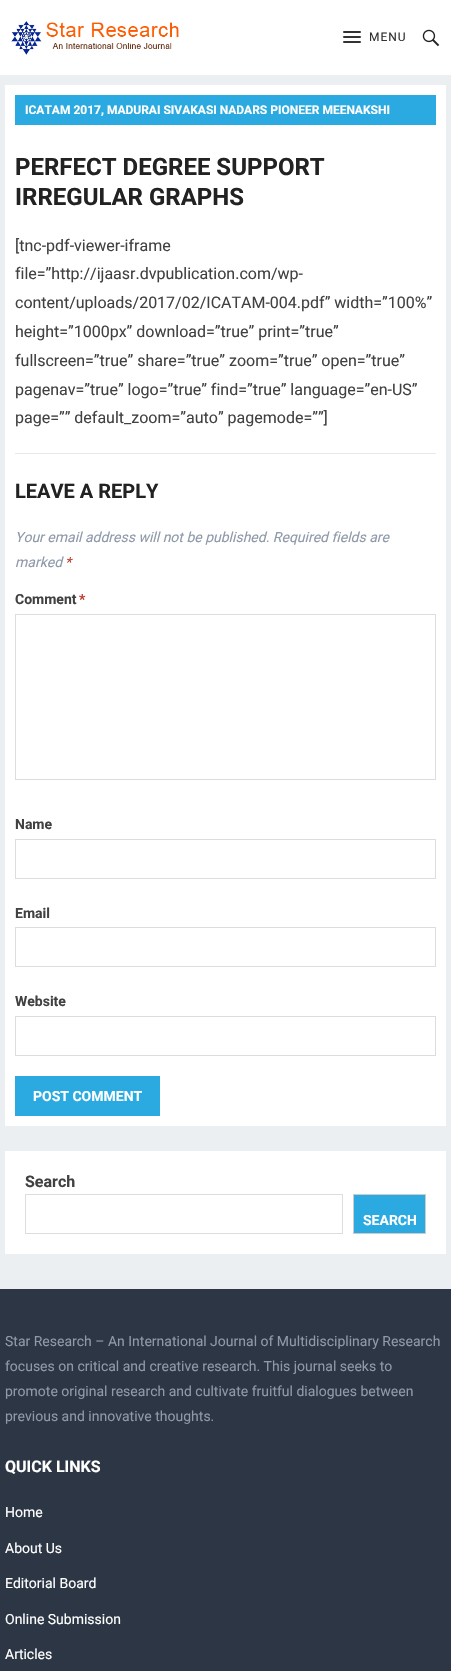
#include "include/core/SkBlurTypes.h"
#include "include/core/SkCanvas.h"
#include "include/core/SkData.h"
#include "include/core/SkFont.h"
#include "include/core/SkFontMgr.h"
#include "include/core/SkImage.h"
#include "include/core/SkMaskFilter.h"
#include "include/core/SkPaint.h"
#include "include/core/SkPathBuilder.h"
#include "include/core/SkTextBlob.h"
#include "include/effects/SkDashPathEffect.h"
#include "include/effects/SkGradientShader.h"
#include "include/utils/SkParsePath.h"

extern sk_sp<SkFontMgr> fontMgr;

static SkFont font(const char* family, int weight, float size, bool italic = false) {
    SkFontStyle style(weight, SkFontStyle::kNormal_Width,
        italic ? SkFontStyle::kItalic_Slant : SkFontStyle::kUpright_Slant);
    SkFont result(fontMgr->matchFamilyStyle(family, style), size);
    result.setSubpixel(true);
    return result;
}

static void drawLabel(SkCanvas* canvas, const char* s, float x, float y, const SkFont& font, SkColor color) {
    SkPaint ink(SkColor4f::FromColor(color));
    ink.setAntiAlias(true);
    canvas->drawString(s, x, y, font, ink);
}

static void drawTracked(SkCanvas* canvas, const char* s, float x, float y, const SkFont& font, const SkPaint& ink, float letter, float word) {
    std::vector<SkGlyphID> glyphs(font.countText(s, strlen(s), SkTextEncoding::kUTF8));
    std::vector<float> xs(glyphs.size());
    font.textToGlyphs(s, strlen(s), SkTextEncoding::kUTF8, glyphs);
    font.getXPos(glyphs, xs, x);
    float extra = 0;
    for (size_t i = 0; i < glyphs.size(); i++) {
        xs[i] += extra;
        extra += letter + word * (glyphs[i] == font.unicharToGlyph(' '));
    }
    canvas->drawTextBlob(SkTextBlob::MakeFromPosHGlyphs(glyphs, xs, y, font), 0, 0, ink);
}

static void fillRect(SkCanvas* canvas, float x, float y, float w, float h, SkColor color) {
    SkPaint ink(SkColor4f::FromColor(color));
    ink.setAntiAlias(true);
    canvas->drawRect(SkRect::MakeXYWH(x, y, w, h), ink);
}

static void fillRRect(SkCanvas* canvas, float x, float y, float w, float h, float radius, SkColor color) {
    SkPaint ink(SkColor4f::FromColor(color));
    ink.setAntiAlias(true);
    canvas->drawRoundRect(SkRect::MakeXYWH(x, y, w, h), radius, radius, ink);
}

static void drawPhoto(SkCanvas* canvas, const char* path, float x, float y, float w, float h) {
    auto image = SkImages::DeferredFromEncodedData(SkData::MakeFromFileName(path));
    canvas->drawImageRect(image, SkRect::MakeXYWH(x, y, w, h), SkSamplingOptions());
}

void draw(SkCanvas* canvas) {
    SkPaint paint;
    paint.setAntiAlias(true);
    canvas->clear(0xFFECEFF1);
    fillRect(canvas, 0, 0, 451, 75, 0xFFFFFFFF);
    drawPhoto(canvas, "assets/img1.png", 11, 21, 168, 34);
    fillRRect(canvas, 343, 31, 18, 2, 1, 0xFF333333);
    fillRRect(canvas, 343, 36, 18, 2, 1, 0xFF333333);
    fillRRect(canvas, 343, 41, 18, 2, 1, 0xFF333333);
    SkFont font1 = font("Roboto", 400, 12);
    paint.setColor(0xFF333333);
    drawTracked(canvas, "MENU", 369, 41, font1, paint, 1, 0);
    drawPhoto(canvas, "assets/img2.png", 422, 29, 18, 18);
    fillRect(canvas, 5, 85, 441, 1041, 0xFFFFFFFF);
    fillRect(canvas, 15, 95, 421, 30, 0xFF2BAAE1);
    SkFont font2 = font("Roboto", 700, 12);
    drawLabel(canvas, "ICATAM 2017, MADURAI SIVAKASI NADARS PIONEER MEENAKSHI", 25, 114, font2, 0xFFFFFFFF);
    SkFont font3 = font("Roboto", 700, 24);
    drawLabel(canvas, "PERFECT DEGREE SUPPORT", 15, 175, font3, 0xFF222222);
    drawLabel(canvas, "IRREGULAR GRAPHS", 15, 205, font3, 0xFF222222);
    SkFont font4 = font("Roboto", 400, 16);
    drawLabel(canvas, "[tnc-pdf-viewer-iframe", 15, 251, font4, 0xFF414141);
    drawLabel(canvas, "file=”http://ijaasr.dvpublication.com/wp-", 15, 279, font4, 0xFF414141);
    drawLabel(canvas, "content/uploads/2017/02/ICATAM-004.pdf” width=”100%”", 15, 308, font4, 0xFF414141);
    drawLabel(canvas, "height=”1000px” download=”true” print=”true”", 15, 337, font4, 0xFF414141);
    drawLabel(canvas, "fullscreen=”true” share=”true” zoom=”true” open=”true”", 15, 366, font4, 0xFF414141);
    drawLabel(canvas, "pagenav=”true” logo=”true” find=”true” language=”en-US”", 15, 395, font4, 0xFF414141);
    drawLabel(canvas, "page=”” default_zoom=”auto” pagemode=””]", 15, 423, font4, 0xFF414141);
    fillRect(canvas, 15, 453, 421, 1, 0xFFE9E9E9);
    SkFont font5 = font("Roboto", 700, 20);
    drawLabel(canvas, "LEAVE A REPLY", 15, 498, font5, 0xFF222222);
    SkFont font6 = font("Roboto", 400, 14, true);
    drawLabel(canvas, "Your email address will not be published. Required fields are", 15, 542, font6, 0xFF8E99A9);
    drawLabel(canvas, "marked", 15, 567, font6, 0xFF8E99A9);
    drawLabel(canvas, "*", 65, 567, font6, 0xFFC0392B);
    SkFont font7 = font("Roboto", 700, 14);
    drawLabel(canvas, "Comment", 15, 604, font7, 0xFF414141);
    drawLabel(canvas, "*", 79, 604, font7, 0xFFC0392B);
    paint.setStroke(true);
    paint.setStrokeWidth(1);
    paint.setColor(0xFFDDDDDD);
    canvas->drawRect(SkRect::MakeXYWH(15.5f, 614.5f, 420, 165), paint);
    drawLabel(canvas, "Name", 15, 829, font7, 0xFF414141);
    canvas->drawRect(SkRect::MakeXYWH(15.5f, 839.5f, 420, 39), paint);
    drawLabel(canvas, "Email", 15, 918, font7, 0xFF414141);
    canvas->drawRect(SkRect::MakeXYWH(15.5f, 927.5f, 420, 39), paint);
    drawLabel(canvas, "Website", 15, 1006, font7, 0xFF414141);
    canvas->drawRect(SkRect::MakeXYWH(15.5f, 1016.5f, 420, 39), paint);
    fillRect(canvas, 15, 1076, 145, 40, 0xFF2BAAE1);
    drawLabel(canvas, "POST COMMENT", 33, 1101, font7, 0xFFFFFFFF);
    fillRect(canvas, 5, 1151, 441, 103, 0xFFFFFFFF);
    SkFont font8 = font("Roboto", 700, 16);
    drawLabel(canvas, "Search", 25, 1187, font8, 0xFF414141);
    canvas->drawRect(SkRect::MakeXYWH(25.5f, 1194.5f, 317, 39), paint);
    paint.setStroke(false);
    paint.setColor(0xFF2BAAE1);
    canvas->drawRect(SkRect::MakeXYWH(353.5f, 1194.5f, 72, 39), paint);
    paint.setStroke(true);
    paint.setColor(0xFFCCCCCC);
    canvas->drawRect(SkRect::MakeXYWH(353.5f, 1194.5f, 72, 39), paint);
    drawLabel(canvas, "SEARCH", 363, 1225, font7, 0xFFFFFFFF);
    fillRect(canvas, 0, 1289, 451, 382, 0xFF2C3644);
    SkFont font9 = font("Roboto", 400, 14);
    drawLabel(canvas, "Star Research – An International Journal of Multidisciplinary Research", 5, 1346, font9, 0xFF8E99A9);
    drawLabel(canvas, "focuses on critical and creative research. This journal seeks to", 5, 1371, font9, 0xFF8E99A9);
    drawLabel(canvas, "promote original research and cultivate fruitful dialogues between", 5, 1396, font9, 0xFF8E99A9);
    drawLabel(canvas, "previous and innovative thoughts.", 5, 1421, font9, 0xFF8E99A9);
    drawLabel(canvas, "QUICK LINKS", 5, 1472, font8, 0xFFFFFFFF);
    drawLabel(canvas, "Home", 5, 1517, font9, 0xFFFFFFFF);
    drawLabel(canvas, "About Us", 5, 1553, font9, 0xFFFFFFFF);
    drawLabel(canvas, "Editorial Board", 5, 1588, font9, 0xFFFFFFFF);
    drawLabel(canvas, "Online Submission", 5, 1624, font9, 0xFFFFFFFF);
    drawLabel(canvas, "Articles", 5, 1659, font9, 0xFFFFFFFF);
}
